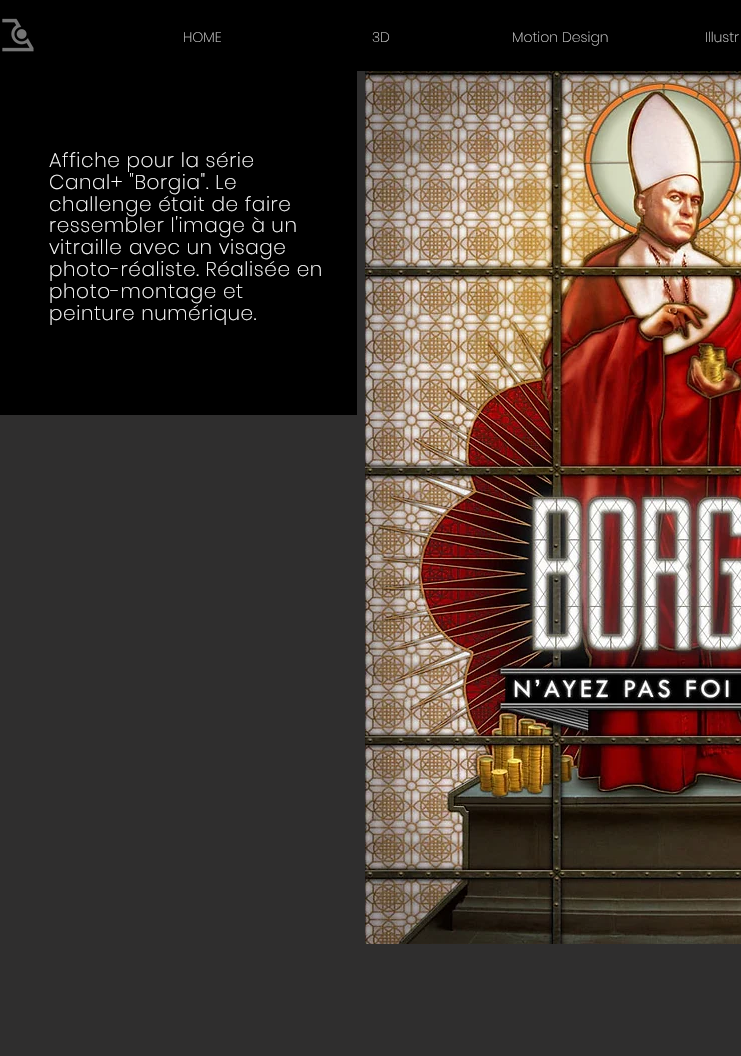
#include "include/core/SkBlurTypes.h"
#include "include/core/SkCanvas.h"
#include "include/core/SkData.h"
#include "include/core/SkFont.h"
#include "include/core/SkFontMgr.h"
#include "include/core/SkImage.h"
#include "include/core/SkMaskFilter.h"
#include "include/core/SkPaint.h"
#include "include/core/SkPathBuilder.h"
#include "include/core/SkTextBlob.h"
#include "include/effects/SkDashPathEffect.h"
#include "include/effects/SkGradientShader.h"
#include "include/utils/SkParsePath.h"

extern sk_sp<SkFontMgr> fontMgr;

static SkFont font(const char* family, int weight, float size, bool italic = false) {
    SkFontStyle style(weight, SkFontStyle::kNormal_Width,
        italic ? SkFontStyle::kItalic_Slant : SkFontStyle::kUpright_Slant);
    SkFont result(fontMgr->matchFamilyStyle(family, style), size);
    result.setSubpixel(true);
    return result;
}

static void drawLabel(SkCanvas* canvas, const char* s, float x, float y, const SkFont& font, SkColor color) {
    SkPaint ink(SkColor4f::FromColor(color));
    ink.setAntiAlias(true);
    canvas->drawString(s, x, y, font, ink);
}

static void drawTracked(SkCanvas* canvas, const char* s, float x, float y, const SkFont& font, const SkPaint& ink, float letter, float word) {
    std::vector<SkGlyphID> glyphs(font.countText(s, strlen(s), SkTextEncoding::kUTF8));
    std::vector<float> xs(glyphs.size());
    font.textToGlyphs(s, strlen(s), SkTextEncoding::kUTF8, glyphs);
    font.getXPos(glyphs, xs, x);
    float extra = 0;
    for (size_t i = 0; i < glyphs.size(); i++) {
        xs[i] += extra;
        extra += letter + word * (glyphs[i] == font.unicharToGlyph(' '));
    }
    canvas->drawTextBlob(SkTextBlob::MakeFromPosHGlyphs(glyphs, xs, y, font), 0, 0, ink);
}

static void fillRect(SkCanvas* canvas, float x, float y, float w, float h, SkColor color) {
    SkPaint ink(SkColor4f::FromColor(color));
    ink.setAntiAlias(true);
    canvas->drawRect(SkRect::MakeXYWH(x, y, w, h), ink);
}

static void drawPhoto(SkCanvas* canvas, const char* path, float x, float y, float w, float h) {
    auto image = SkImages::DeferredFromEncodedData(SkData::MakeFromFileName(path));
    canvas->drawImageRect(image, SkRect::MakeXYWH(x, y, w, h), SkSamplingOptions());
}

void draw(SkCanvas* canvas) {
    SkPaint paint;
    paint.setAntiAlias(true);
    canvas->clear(0xFF2F2E2E);
    fillRect(canvas, 0, 0, 741, 71, 0xFF000000);
    drawPhoto(canvas, "assets/img1.png", 2, 18, 32, 34);
    SkFont font1 = font("Poppins", 200, 14);
    drawLabel(canvas, "HOME", 183, 42, font1, 0xFFCCCCCC);
    drawLabel(canvas, "3D", 372, 42, font1, 0xFFCCCCCC);
    drawLabel(canvas, "Motion Design", 512, 42, font1, 0xFFCCCCCC);
    drawLabel(canvas, "Illustr", 705, 42, font1, 0xFFCCCCCC);
    fillRect(canvas, 0, 71, 357, 344, 0xFF000000);
    drawPhoto(canvas, "assets/img2.png", 365, 71, 376, 873);
    SkFont font2 = font("Poppins", 200, 20);
    paint.setColor(0xFFFFFFFF);
    drawTracked(canvas, "Affiche pour la série", 49, 167, font2, paint, 0.6f, 0);
    drawTracked(canvas, "Canal+ \"Borgia\". Le", 49, 189, font2, paint, 0.6f, 0);
    drawTracked(canvas, "challenge était de faire", 49, 211, font2, paint, 0.6f, 0);
    drawTracked(canvas, "ressembler l'image à un", 49, 232, font2, paint, 0.6f, 0);
    drawTracked(canvas, "v", 49, 254, font2, paint, 0.6f, 0);
    drawTracked(canvas, "itraille", 60, 254, font2, paint, 0.75f, 0);
    drawTracked(canvas, "avec un visage", 129, 254, font2, paint, 0.6f, 0);
    drawTracked(canvas, "photo-réaliste. Réalisée en", 49, 276, font2, paint, 0.6f, 0);
    drawTracked(canvas, "photo-montage et", 49, 298, font2, paint, 0.6f, 0);
    drawTracked(canvas, "peinture numérique.", 49, 320, font2, paint, 0.6f, 0);
}
